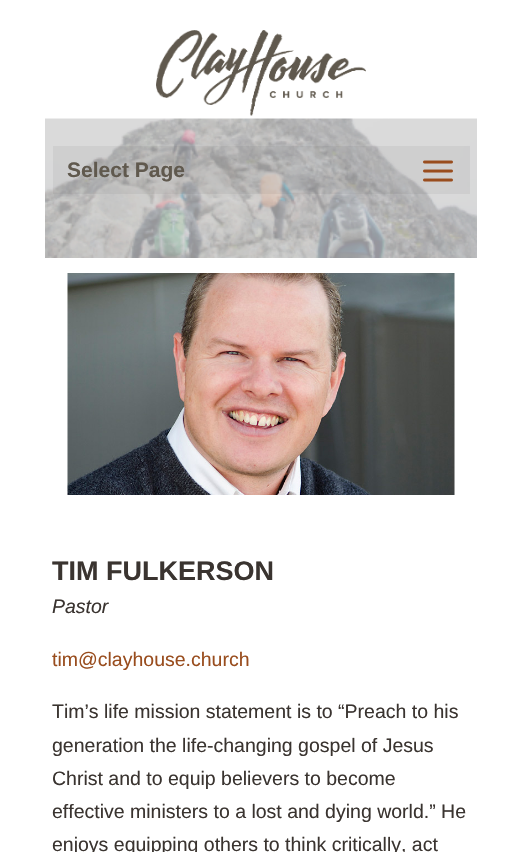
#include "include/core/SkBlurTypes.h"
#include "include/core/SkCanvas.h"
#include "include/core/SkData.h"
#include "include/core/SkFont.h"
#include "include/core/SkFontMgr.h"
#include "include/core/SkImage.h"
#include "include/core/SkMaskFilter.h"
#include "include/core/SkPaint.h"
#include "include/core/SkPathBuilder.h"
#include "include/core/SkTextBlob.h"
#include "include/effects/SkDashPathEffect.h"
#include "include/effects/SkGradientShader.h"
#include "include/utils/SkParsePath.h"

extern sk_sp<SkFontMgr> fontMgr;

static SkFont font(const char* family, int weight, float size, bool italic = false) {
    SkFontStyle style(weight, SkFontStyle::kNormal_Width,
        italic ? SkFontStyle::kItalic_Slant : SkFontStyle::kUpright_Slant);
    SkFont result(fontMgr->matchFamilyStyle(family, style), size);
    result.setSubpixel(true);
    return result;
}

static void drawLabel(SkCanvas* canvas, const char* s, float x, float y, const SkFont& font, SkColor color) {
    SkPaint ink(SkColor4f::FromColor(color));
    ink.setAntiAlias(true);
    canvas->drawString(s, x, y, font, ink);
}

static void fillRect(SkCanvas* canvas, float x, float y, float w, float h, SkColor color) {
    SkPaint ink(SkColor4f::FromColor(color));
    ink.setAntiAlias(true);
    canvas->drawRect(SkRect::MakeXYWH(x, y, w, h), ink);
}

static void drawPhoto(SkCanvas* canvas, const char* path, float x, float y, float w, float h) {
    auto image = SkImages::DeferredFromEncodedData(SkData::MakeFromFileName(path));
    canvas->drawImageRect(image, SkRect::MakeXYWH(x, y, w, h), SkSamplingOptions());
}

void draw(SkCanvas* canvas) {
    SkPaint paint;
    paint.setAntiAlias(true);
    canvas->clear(0xFFFFFFFF);
    drawPhoto(canvas, "assets/img1.png", 156, 30, 210, 86);
    drawPhoto(canvas, "assets/img3.png", 45, 118, 432, 140);
    fillRect(canvas, 53, 146, 417, 48, 0x0D000000);
    SkFont font1 = font("Liberation Sans", 700, 21);
    drawLabel(canvas, "Select Page", 67, 177, font1, 0xFF60594E);
    drawPhoto(canvas, "assets/img2.png", 423, 160, 30, 22);
    drawPhoto(canvas, "assets/img4.png", 67, 273, 388, 222);
    SkFont font2 = font("Liberation Sans", 700, 27);
    drawLabel(canvas, "TIM FULKERSON", 52, 580, font2, 0xFF3A3430);
    SkFont font3 = font("Liberation Sans", 400, 19.5f, true);
    drawLabel(canvas, "Pastor", 52, 613, font3, 0xFF3A3430);
    SkFont font4 = font("Liberation Sans", 400, 19.5f);
    drawLabel(canvas, "tim@clayhouse.church", 52, 666, font4, 0xFF994D1E);
    drawLabel(canvas, "Tim’s life mission statement is to “Preach to his", 52, 718, font4, 0xFF3A3430);
    drawLabel(canvas, "generation the life-changing gospel of Jesus", 52, 752, font4, 0xFF3A3430);
    drawLabel(canvas, "Christ and to equip believers to become", 52, 785, font4, 0xFF3A3430);
    drawLabel(canvas, "effective ministers to a lost and dying world.” He", 52, 818, font4, 0xFF3A3430);
    drawLabel(canvas, "enjoys equipping others to think critically, act", 52, 851, font4, 0xFF3A3430);
}
